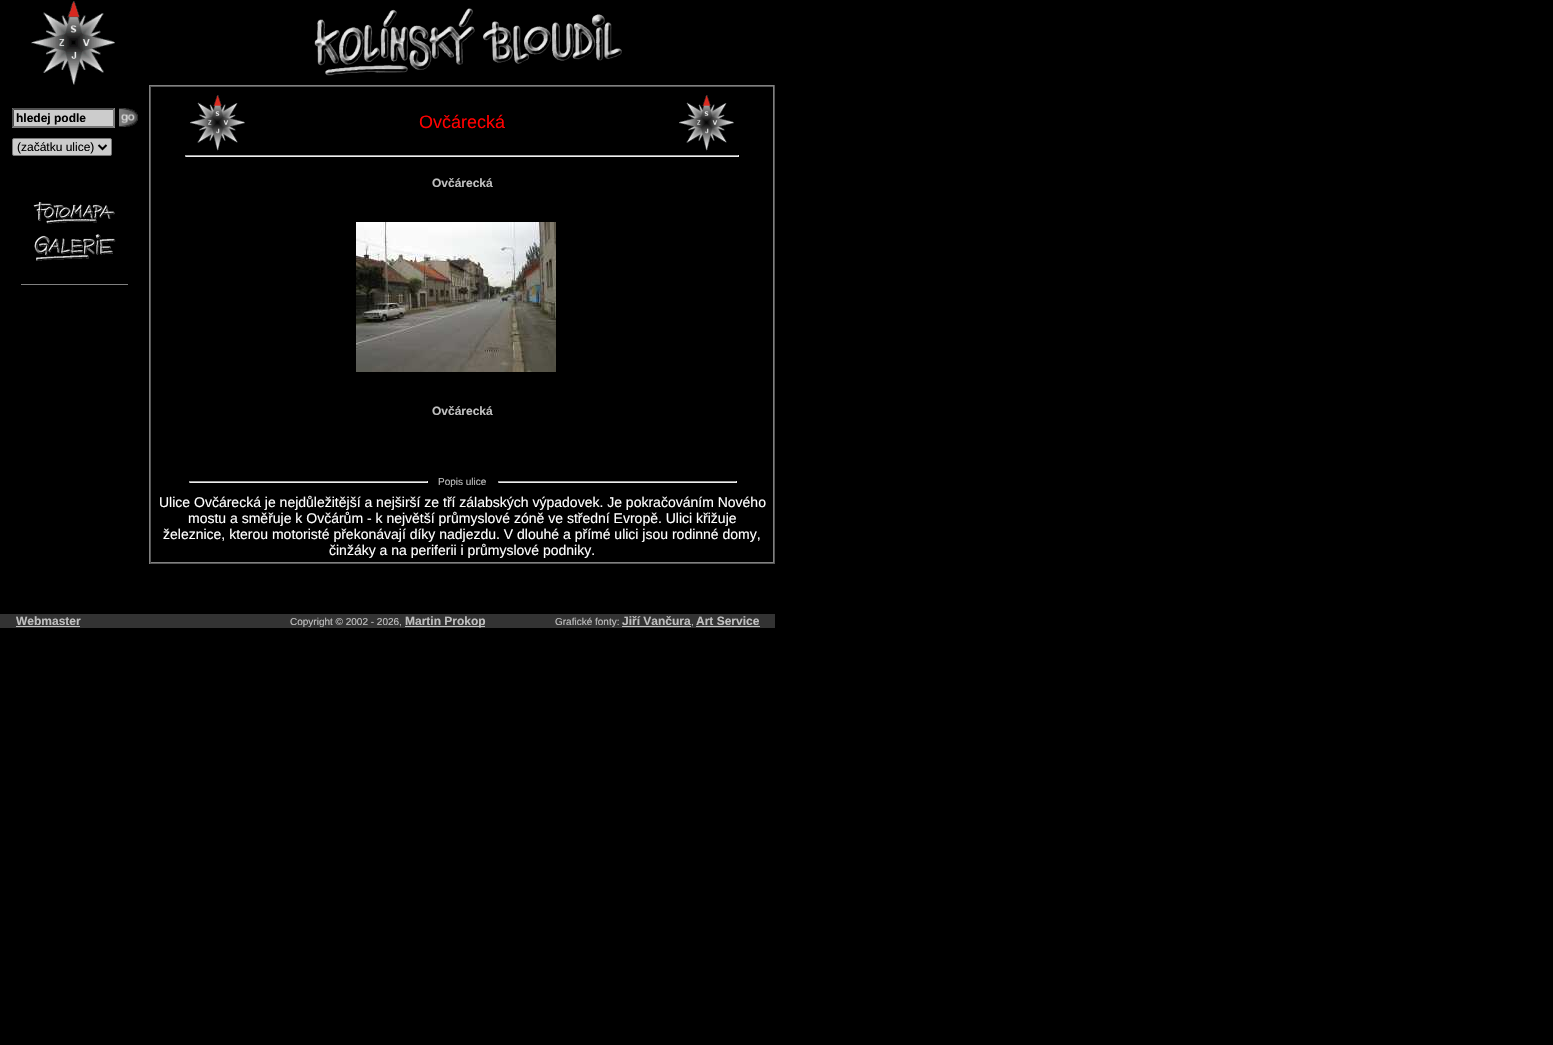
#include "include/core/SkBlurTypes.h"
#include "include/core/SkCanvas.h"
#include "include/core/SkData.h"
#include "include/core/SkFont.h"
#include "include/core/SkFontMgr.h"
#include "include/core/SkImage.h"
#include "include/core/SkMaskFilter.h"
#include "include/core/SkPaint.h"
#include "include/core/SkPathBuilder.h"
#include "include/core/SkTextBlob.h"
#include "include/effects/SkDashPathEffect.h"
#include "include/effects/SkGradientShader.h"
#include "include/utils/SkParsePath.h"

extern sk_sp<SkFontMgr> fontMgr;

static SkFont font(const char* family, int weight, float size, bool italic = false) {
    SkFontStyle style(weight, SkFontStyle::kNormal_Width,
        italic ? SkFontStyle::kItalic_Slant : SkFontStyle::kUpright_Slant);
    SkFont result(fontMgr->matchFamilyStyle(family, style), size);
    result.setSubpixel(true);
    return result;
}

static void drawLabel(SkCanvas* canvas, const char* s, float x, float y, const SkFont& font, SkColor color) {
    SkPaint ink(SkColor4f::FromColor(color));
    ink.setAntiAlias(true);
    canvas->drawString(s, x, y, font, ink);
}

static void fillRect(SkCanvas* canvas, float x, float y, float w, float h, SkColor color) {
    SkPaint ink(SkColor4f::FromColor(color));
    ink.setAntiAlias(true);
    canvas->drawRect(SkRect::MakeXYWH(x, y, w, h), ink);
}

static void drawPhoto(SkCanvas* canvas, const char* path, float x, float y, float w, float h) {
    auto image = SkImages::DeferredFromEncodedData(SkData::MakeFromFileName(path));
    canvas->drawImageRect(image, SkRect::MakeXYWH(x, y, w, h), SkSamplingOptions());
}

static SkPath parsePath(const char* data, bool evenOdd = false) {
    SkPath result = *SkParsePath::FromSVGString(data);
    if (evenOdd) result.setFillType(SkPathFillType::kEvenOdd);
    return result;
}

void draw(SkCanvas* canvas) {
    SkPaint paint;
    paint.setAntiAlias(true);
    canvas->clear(0xFF000000);
    drawPhoto(canvas, "assets/img1.png", 31, 1, 84, 84);
    drawPhoto(canvas, "assets/img2.png", 314, 8, 308, 68);
    fillRect(canvas, 12, 108, 103, 20, 0xFFCCCCCC);
    paint.setColor(0xFF4F4F4F);
    canvas->drawPath(parsePath("M12 108H115L113 110H14Z"), paint);
    paint.setColor(0xFF767676);
    canvas->drawPath(parsePath("M115 108V128L113 126V110Z"), paint);
    canvas->drawPath(parsePath("M115 128H12L14 126H113Z"), paint);
    paint.setColor(0xFF4F4F4F);
    canvas->drawPath(parsePath("M12 128V108L14 110V126Z"), paint);
    SkFont font1 = font("Liberation Sans", 700, 12);
    drawLabel(canvas, "hledej podle", 16, 122, font1, 0xFF000000);
    drawPhoto(canvas, "assets/img3.png", 119, 108, 19, 19);
    paint.setColor(0xFFCCCCCC);
    canvas->drawRoundRect(SkRect::MakeXYWH(12.5f, 138.5f, 99, 17), 1.5f, 1.5f, paint);
    paint.setStroke(true);
    paint.setStrokeWidth(1);
    paint.setColor(0xFF767676);
    canvas->drawRoundRect(SkRect::MakeXYWH(12.5f, 138.5f, 99, 17), 1.5f, 1.5f, paint);
    paint.setStrokeWidth(2);
    paint.setColor(0xFF000000);
    canvas->drawPath(parsePath("M98.5 145L102.5 149L106.5 145"), paint);
    SkFont font2 = font("Liberation Sans", 400, 12);
    drawLabel(canvas, "(začátku ulice)", 17, 151, font2, 0xFF000000);
    drawPhoto(canvas, "assets/img4.png", 33, 201, 82, 23);
    drawPhoto(canvas, "assets/img5.png", 34, 234, 82, 27);
    fillRect(canvas, 21, 284, 107, 1, 0xFF808080);
    fillRect(canvas, 149, 85, 626, 1, 0xFF808080);
    fillRect(canvas, 774, 85, 1, 479, 0xFF555555);
    fillRect(canvas, 149, 563, 626, 1, 0xFF555555);
    fillRect(canvas, 149, 85, 1, 479, 0xFF808080);
    fillRect(canvas, 150, 86, 624, 1, 0xFF555555);
    fillRect(canvas, 773, 86, 1, 477, 0xFF808080);
    fillRect(canvas, 150, 562, 624, 1, 0xFF808080);
    fillRect(canvas, 150, 86, 1, 477, 0xFF555555);
    drawPhoto(canvas, "assets/img6.png", 190, 95, 55, 56);
    SkFont font3 = font("Liberation Sans", 400, 18);
    drawLabel(canvas, "Ovčárecká", 419, 128, font3, 0xFFFF0000);
    drawPhoto(canvas, "assets/img6.png", 679, 95, 55, 56);
    fillRect(canvas, 185, 155, 554, 1, 0xFF9F9F9F);
    fillRect(canvas, 738, 155, 1, 2, 0xFFEEEEEE);
    fillRect(canvas, 185, 156, 554, 1, 0xFFEEEEEE);
    fillRect(canvas, 185, 155, 1, 2, 0xFF9F9F9F);
    drawLabel(canvas, "Ovčárecká", 432, 187, font1, 0xFFC0C0C0);
    drawPhoto(canvas, "assets/img7.png", 356, 222, 200, 150);
    drawLabel(canvas, "Ovčárecká", 432, 415, font1, 0xFFC0C0C0);
    fillRect(canvas, 189, 481, 239, 1, 0xFF9F9F9F);
    fillRect(canvas, 427, 481, 1, 2, 0xFFEEEEEE);
    fillRect(canvas, 189, 482, 239, 1, 0xFFEEEEEE);
    fillRect(canvas, 189, 481, 1, 2, 0xFF9F9F9F);
    SkFont font4 = font("Liberation Sans", 400, 10);
    drawLabel(canvas, "Popis ulice", 438, 485, font4, 0xFFC0C0C0);
    fillRect(canvas, 498, 481, 239, 1, 0xFF9F9F9F);
    fillRect(canvas, 736, 481, 1, 2, 0xFFEEEEEE);
    fillRect(canvas, 498, 482, 239, 1, 0xFFEEEEEE);
    fillRect(canvas, 498, 481, 1, 2, 0xFF9F9F9F);
    SkFont font5 = font("Liberation Sans", 400, 14);
    drawLabel(canvas, "Ulice Ovčárecká je nejdůležitější a nejširší ze tří zálabských výpadovek. Je pokračováním Nového", 159, 507, font5, 0xFFFFFFFF);
    drawLabel(canvas, "mostu a směřuje k Ovčárům - k největší průmyslové zóně ve střední Evropě. Ulici křižuje", 188, 523, font5, 0xFFFFFFFF);
    drawLabel(canvas, "železnice, kterou motoristé překonávají díky nadjezdu. V dlouhé a přímé ulici jsou rodinné domy,", 163, 539, font5, 0xFFFFFFFF);
    drawLabel(canvas, "činžáky a na periferii i průmyslové podniky.", 329, 555, font5, 0xFFFFFFFF);
    fillRect(canvas, 0, 614, 775, 14, 0xFF333333);
    drawLabel(canvas, "Webmaster", 16, 625, font1, 0xFFC0C0C0);
    fillRect(canvas, 16, 626, 64, 1, 0xFFC0C0C0);
    drawLabel(canvas, "Copyright © 2002 - 2026,", 290, 625, font4, 0xFFC0C0C0);
    fillRect(canvas, 405, 626, 80, 1, 0xFFC0C0C0);
    drawLabel(canvas, "Martin Prokop", 405, 625, font1, 0xFFC0C0C0);
    drawLabel(canvas, "Grafické fonty:", 555, 625, font4, 0xFFC0C0C0);
    drawLabel(canvas, "Jiří Vančura", 622, 625, font1, 0xFFC0C0C0);
    drawLabel(canvas, ",", 691, 625, font4, 0xFFC0C0C0);
    fillRect(canvas, 622, 626, 69, 1, 0xFFC0C0C0);
    fillRect(canvas, 696, 626, 64, 1, 0xFFC0C0C0);
    drawLabel(canvas, "Art Service", 696, 625, font1, 0xFFC0C0C0);
}
